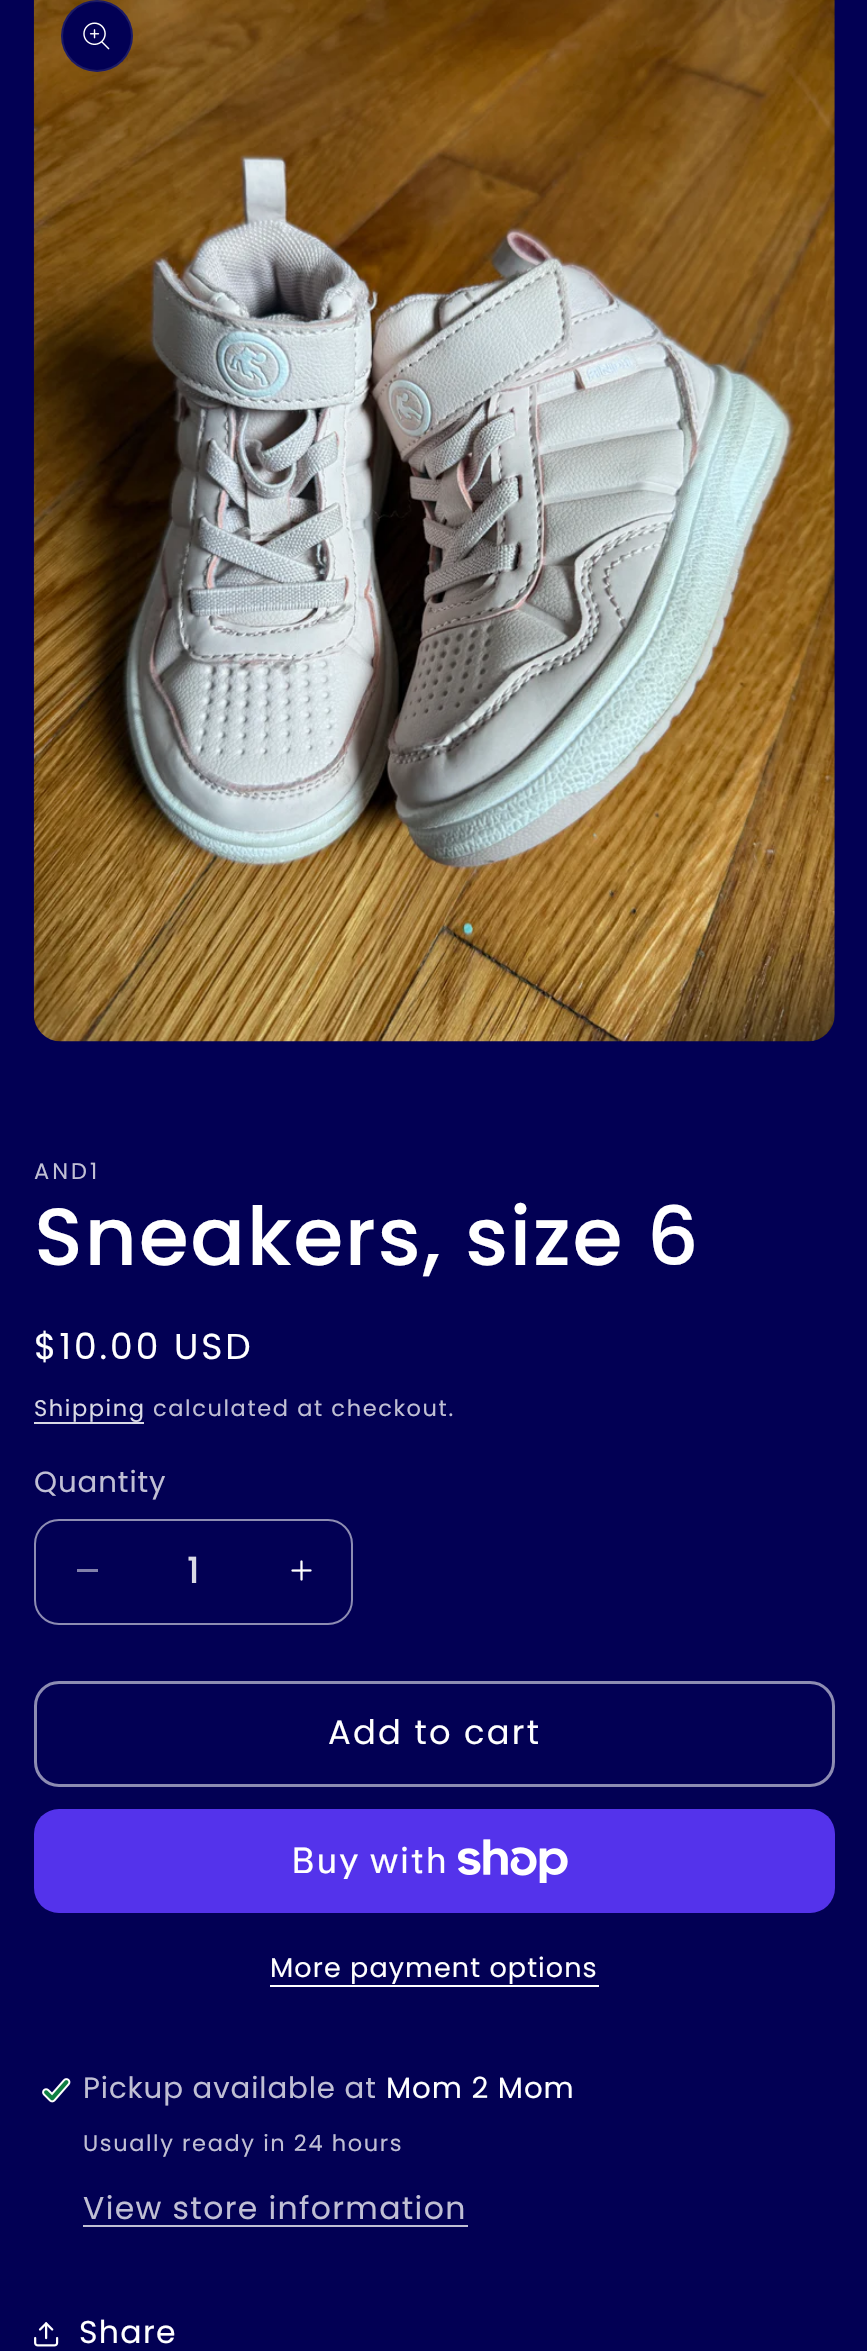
#include "include/core/SkBlurTypes.h"
#include "include/core/SkCanvas.h"
#include "include/core/SkData.h"
#include "include/core/SkFont.h"
#include "include/core/SkFontMgr.h"
#include "include/core/SkImage.h"
#include "include/core/SkMaskFilter.h"
#include "include/core/SkPaint.h"
#include "include/core/SkPathBuilder.h"
#include "include/core/SkTextBlob.h"
#include "include/effects/SkDashPathEffect.h"
#include "include/effects/SkGradientShader.h"
#include "include/utils/SkParsePath.h"

extern sk_sp<SkFontMgr> fontMgr;

static SkFont font(const char* family, int weight, float size, bool italic = false) {
    SkFontStyle style(weight, SkFontStyle::kNormal_Width,
        italic ? SkFontStyle::kItalic_Slant : SkFontStyle::kUpright_Slant);
    SkFont result(fontMgr->matchFamilyStyle(family, style), size);
    result.setSubpixel(true);
    return result;
}

static void drawLabel(SkCanvas* canvas, const char* s, float x, float y, const SkFont& font, SkColor color) {
    SkPaint ink(SkColor4f::FromColor(color));
    ink.setAntiAlias(true);
    canvas->drawString(s, x, y, font, ink);
}

static void drawTracked(SkCanvas* canvas, const char* s, float x, float y, const SkFont& font, const SkPaint& ink, float letter, float word) {
    std::vector<SkGlyphID> glyphs(font.countText(s, strlen(s), SkTextEncoding::kUTF8));
    std::vector<float> xs(glyphs.size());
    font.textToGlyphs(s, strlen(s), SkTextEncoding::kUTF8, glyphs);
    font.getXPos(glyphs, xs, x);
    float extra = 0;
    for (size_t i = 0; i < glyphs.size(); i++) {
        xs[i] += extra;
        extra += letter + word * (glyphs[i] == font.unicharToGlyph(' '));
    }
    canvas->drawTextBlob(SkTextBlob::MakeFromPosHGlyphs(glyphs, xs, y, font), 0, 0, ink);
}

static void fillRect(SkCanvas* canvas, float x, float y, float w, float h, SkColor color) {
    SkPaint ink(SkColor4f::FromColor(color));
    ink.setAntiAlias(true);
    canvas->drawRect(SkRect::MakeXYWH(x, y, w, h), ink);
}

static void fillRRect(SkCanvas* canvas, float x, float y, float w, float h, float radius, SkColor color) {
    SkPaint ink(SkColor4f::FromColor(color));
    ink.setAntiAlias(true);
    canvas->drawRoundRect(SkRect::MakeXYWH(x, y, w, h), radius, radius, ink);
}

static void drawPhoto(SkCanvas* canvas, const char* path, float x, float y, float w, float h) {
    auto image = SkImages::DeferredFromEncodedData(SkData::MakeFromFileName(path));
    canvas->drawImageRect(image, SkRect::MakeXYWH(x, y, w, h), SkSamplingOptions());
}

void draw(SkCanvas* canvas) {
    SkPaint paint;
    paint.setAntiAlias(true);
    canvas->clear(0xFF020054);
    drawPhoto(canvas, "assets/img1.png", 33, 0, 802, 1042);
    paint.setColor(0xFF020054);
    canvas->drawCircle(97, 36, 36, paint);
    paint.setStroke(true);
    paint.setStrokeWidth(2);
    paint.setColor(0x1AFFFFFF);
    canvas->drawCircle(97, 36, 35, paint);
    drawPhoto(canvas, "assets/img2.png", 83, 22, 27, 28);
    SkFont font1 = font("Poppins", 400, 22.5f);
    paint.setStroke(false);
    paint.setColor(0xFFC0BFD4);
    drawTracked(canvas, "AND1", 34, 1179, font1, paint, 3, 0);
    SkFont font2 = font("Poppins", 500, 81);
    paint.setColor(0xFFFFFFFF);
    drawTracked(canvas, "Sneakers, size 6", 34, 1265, font2, paint, 1.6f, 0);
    SkFont font3 = font("Poppins", 400, 36);
    drawTracked(canvas, "$10.00 USD", 34, 1359, font3, paint, 3, 0);
    fillRect(canvas, 34, 1422, 110, 2, 0xFFD9D9E5);
    paint.setColor(0xFFD9D9E5);
    drawTracked(canvas, "Shipping", 34, 1416, font1, paint, 1.6f, 0);
    paint.setColor(0xFFC0BFD4);
    drawTracked(canvas, "calculated at checkout.", 153, 1416, font1, paint, 1.6f, 0);
    SkFont font4 = font("Poppins", 400, 29.25f);
    drawTracked(canvas, "Quantity", 34, 1492, font4, paint, 0.9f, 0);
    fillRect(canvas, 77, 1569, 21, 3, 0xFF8180AA);
    drawPhoto(canvas, "assets/img3.png", 291, 1560, 21, 21);
    paint.setStroke(true);
    paint.setColor(0xFF8D8CB2);
    canvas->drawRoundRect(SkRect::MakeXYWH(35, 1520, 317, 104), 24, 24, paint);
    SkFont font5 = font("Poppins", 500, 36);
    drawLabel(canvas, "1", 187, 1583, font5, 0xFFD9D9E5);
    paint.setStrokeWidth(3);
    canvas->drawRoundRect(SkRect::MakeXYWH(35.5f, 1682.5f, 798, 103), 23.5f, 23.5f, paint);
    SkFont font6 = font("Poppins", 400, 33.75f);
    paint.setStroke(false);
    paint.setColor(0xFFFFFFFF);
    drawTracked(canvas, "Add to cart", 328, 1744, font6, paint, 2.25f, 0);
    fillRRect(canvas, 34, 1809, 801, 104, 25, 0xFF5433EB);
    SkFont font7 = font("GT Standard", 400, 36);
    drawTracked(canvas, "Buy with", 291, 1873, font7, paint, 1.35f, 0);
    drawPhoto(canvas, "assets/img4.png", 458, 1839, 110, 44);
    SkFont font8 = font("Poppins", 400, 27);
    drawTracked(canvas, "More payment options", 270, 1977, font8, paint, 1.1f, 0);
    fillRect(canvas, 270, 1985, 329, 2, 0xFFFFFFFF);
    drawPhoto(canvas, "assets/img5.png", 42, 2078, 29, 25);
    paint.setColor(0xFFC0BFD4);
    drawTracked(canvas, "Pickup available at", 83, 2098, font4, paint, 0.9f, 0);
    paint.setColor(0xFFFFFFFF);
    drawTracked(canvas, "Mom 2 Mom", 386, 2098, font4, paint, 0.9f, 0);
    paint.setColor(0xFFC0BFD4);
    drawTracked(canvas, "Usually ready in 24 hours", 83, 2151, font1, paint, 1.6f, 0);
    SkFont font9 = font("Poppins", 400, 31.5f);
    drawTracked(canvas, "View store information", 83, 2219, font9, paint, 1.35f, 0);
    fillRect(canvas, 83, 2225, 385, 2, 0xFFC0BFD4);
    drawPhoto(canvas, "assets/img6.png", 34, 2322, 25, 25);
    paint.setColor(0xFFFFFFFF);
    drawTracked(canvas, "Share", 79, 2343, font9, paint, 1.35f, 0);
}
